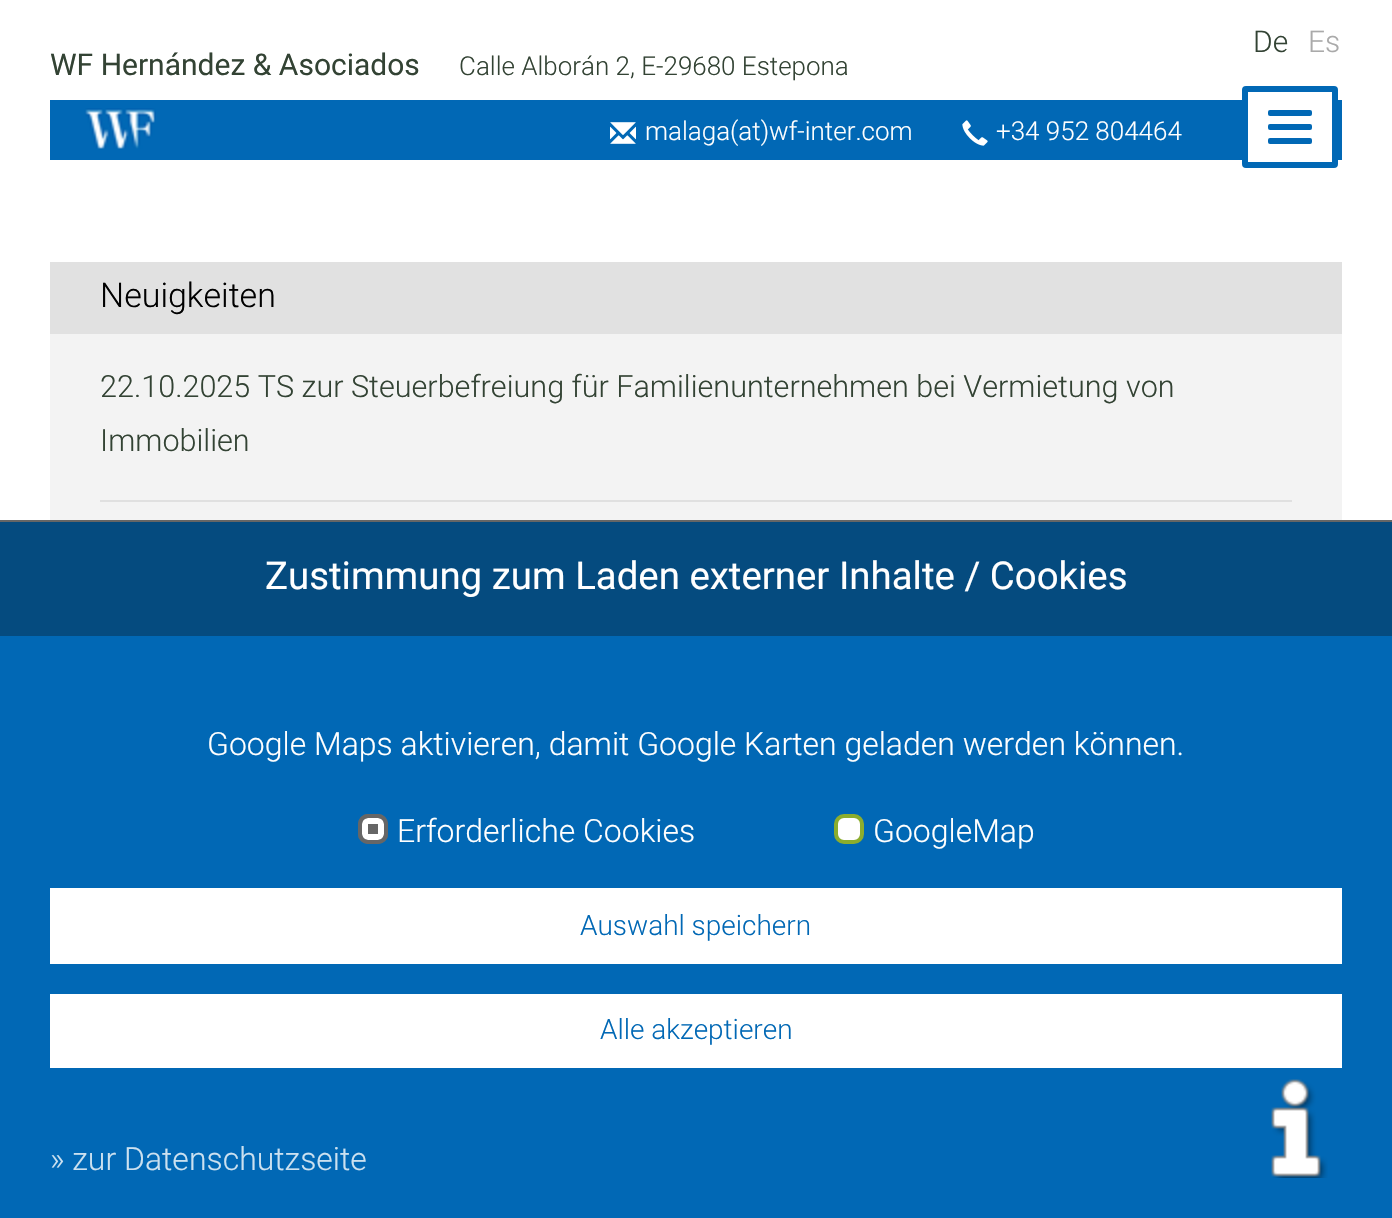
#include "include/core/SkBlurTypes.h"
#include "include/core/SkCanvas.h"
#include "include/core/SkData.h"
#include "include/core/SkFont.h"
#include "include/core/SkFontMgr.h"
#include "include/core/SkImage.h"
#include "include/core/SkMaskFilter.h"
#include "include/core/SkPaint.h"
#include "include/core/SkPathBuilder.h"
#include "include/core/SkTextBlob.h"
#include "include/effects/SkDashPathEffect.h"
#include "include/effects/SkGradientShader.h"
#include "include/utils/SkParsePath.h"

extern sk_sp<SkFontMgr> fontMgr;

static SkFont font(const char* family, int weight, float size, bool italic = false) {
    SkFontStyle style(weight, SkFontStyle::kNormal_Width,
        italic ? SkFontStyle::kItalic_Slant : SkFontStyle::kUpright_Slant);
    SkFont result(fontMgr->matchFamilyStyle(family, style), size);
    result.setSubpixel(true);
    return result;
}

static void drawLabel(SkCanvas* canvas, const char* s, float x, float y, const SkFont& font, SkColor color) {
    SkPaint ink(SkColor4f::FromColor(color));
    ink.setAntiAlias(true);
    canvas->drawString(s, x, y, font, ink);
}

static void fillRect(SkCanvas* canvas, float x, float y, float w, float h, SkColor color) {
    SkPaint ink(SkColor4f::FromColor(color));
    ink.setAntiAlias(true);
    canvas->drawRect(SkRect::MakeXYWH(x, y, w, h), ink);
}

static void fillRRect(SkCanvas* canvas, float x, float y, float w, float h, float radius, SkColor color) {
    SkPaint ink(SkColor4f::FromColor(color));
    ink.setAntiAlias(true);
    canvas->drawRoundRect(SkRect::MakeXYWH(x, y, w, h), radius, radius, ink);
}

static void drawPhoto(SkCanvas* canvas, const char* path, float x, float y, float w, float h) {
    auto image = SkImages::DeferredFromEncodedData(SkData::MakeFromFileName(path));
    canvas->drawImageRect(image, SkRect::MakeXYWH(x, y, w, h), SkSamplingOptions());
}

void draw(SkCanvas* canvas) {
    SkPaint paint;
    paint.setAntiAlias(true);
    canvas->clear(0xFFFFFFFF);
    SkFont font1 = font("Roboto", 300, 30);
    drawLabel(canvas, "De", 1253, 52, font1, 0xFF334334);
    drawLabel(canvas, "Es", 1308, 52, font1, 0xFFAAAAAA);
    SkFont font2 = font("Roboto", 400, 30);
    drawLabel(canvas, "WF Hernández & Asociados", 50, 75, font2, 0xFF334334);
    SkFont font3 = font("Roboto", 300, 26);
    drawLabel(canvas, "Calle Alborán 2, E-29680 Estepona", 459, 75, font3, 0xFF334334);
    fillRect(canvas, 50, 100, 1292, 60, 0xFF0168B5);
    drawPhoto(canvas, "assets/img1.png", 610, 122, 26, 22);
    drawLabel(canvas, "malaga(at)wf-inter.com", 645, 140, font3, 0xFFFFFFFF);
    drawPhoto(canvas, "assets/img2.png", 962, 120, 26, 26);
    drawLabel(canvas, "+34 952 804464", 996, 140, font3, 0xFFFFFFFF);
    paint.setColor(0xFFFFFFFF);
    canvas->drawRoundRect(SkRect::MakeXYWH(1245, 89, 90, 76), 1, 1, paint);
    paint.setStroke(true);
    paint.setStrokeWidth(6);
    paint.setColor(0xFF0168B5);
    canvas->drawRoundRect(SkRect::MakeXYWH(1245, 89, 90, 76), 1, 1, paint);
    fillRRect(canvas, 1268, 110, 44, 6, 2, 0xFF0168B5);
    fillRRect(canvas, 1268, 124, 44, 6, 2, 0xFF0168B5);
    fillRRect(canvas, 1268, 138, 44, 6, 2, 0xFF0168B5);
    drawPhoto(canvas, "assets/img3.png", 85, 108, 71, 41);
    fillRect(canvas, 50, 334, 1292, 186, 0xFFF3F3F3);
    fillRect(canvas, 50, 262, 1292, 72, 0xFFE1E1E1);
    SkFont font4 = font("Roboto", 300, 34);
    drawLabel(canvas, "Neuigkeiten", 100, 307, font4, 0xFF000000);
    fillRect(canvas, 100, 500, 1192, 2, 0xFFE0E0E0);
    SkFont font5 = font("Roboto", 300, 30.6f);
    drawLabel(canvas, "22.10.2025 TS zur Steuerbefreiung für Familienunternehmen bei Vermietung von", 100, 397, font5, 0xFF334334);
    drawLabel(canvas, "Immobilien", 100, 451, font5, 0xFF334334);
    fillRect(canvas, 0, 636, 1392, 582, 0xFF0168B5);
    fillRect(canvas, 0, 520, 1392, 2, 0xFF666666);
    fillRect(canvas, 0, 522, 1392, 114, 0xFF054B7F);
    SkFont font6 = font("Roboto", 400, 38.4f);
    drawLabel(canvas, "Zustimmung zum Laden externer Inhalte / Cookies", 265, 589, font6, 0xFFFFFFFF);
    SkFont font7 = font("Roboto", 300, 32);
    drawLabel(canvas, "Google Maps aktivieren, damit Google Karten geladen werden können.", 207, 755, font7, 0xFFFFFFFF);
    fillRRect(canvas, 358, 814, 30, 30, 10, 0xFF666666);
    paint.setColor(0xFFFFFFFF);
    canvas->drawRoundRect(SkRect::MakeXYWH(365, 821, 16, 16), 3, 3, paint);
    paint.setStrokeWidth(4);
    paint.setColor(0xFF666666);
    canvas->drawRoundRect(SkRect::MakeXYWH(360, 816, 26, 26), 8, 8, paint);
    drawLabel(canvas, "Erforderliche Cookies", 397, 842, font7, 0xFFFFFFFF);
    paint.setStroke(false);
    paint.setColor(0xFFFFFFFF);
    canvas->drawRoundRect(SkRect::MakeXYWH(836, 816, 26, 26), 8, 8, paint);
    paint.setStroke(true);
    paint.setColor(0xFF8CAD2D);
    canvas->drawRoundRect(SkRect::MakeXYWH(836, 816, 26, 26), 8, 8, paint);
    drawLabel(canvas, "GoogleMap", 873, 842, font7, 0xFFFFFFFF);
    fillRect(canvas, 50, 888, 1292, 76, 0xFFFFFFFF);
    SkFont font8 = font("Roboto", 300, 28);
    drawLabel(canvas, "Auswahl speichern", 580, 935, font8, 0xFF0168B5);
    fillRect(canvas, 50, 994, 1292, 74, 0xFFFFFFFF);
    drawLabel(canvas, "Alle akzeptieren", 600, 1039, font8, 0xFF0168B5);
    drawLabel(canvas, "» zur Datenschutzseite", 50, 1170, font7, 0xFFCCE1F0);
    drawPhoto(canvas, "assets/img4.png", 1271, 1079, 57, 99);
}
